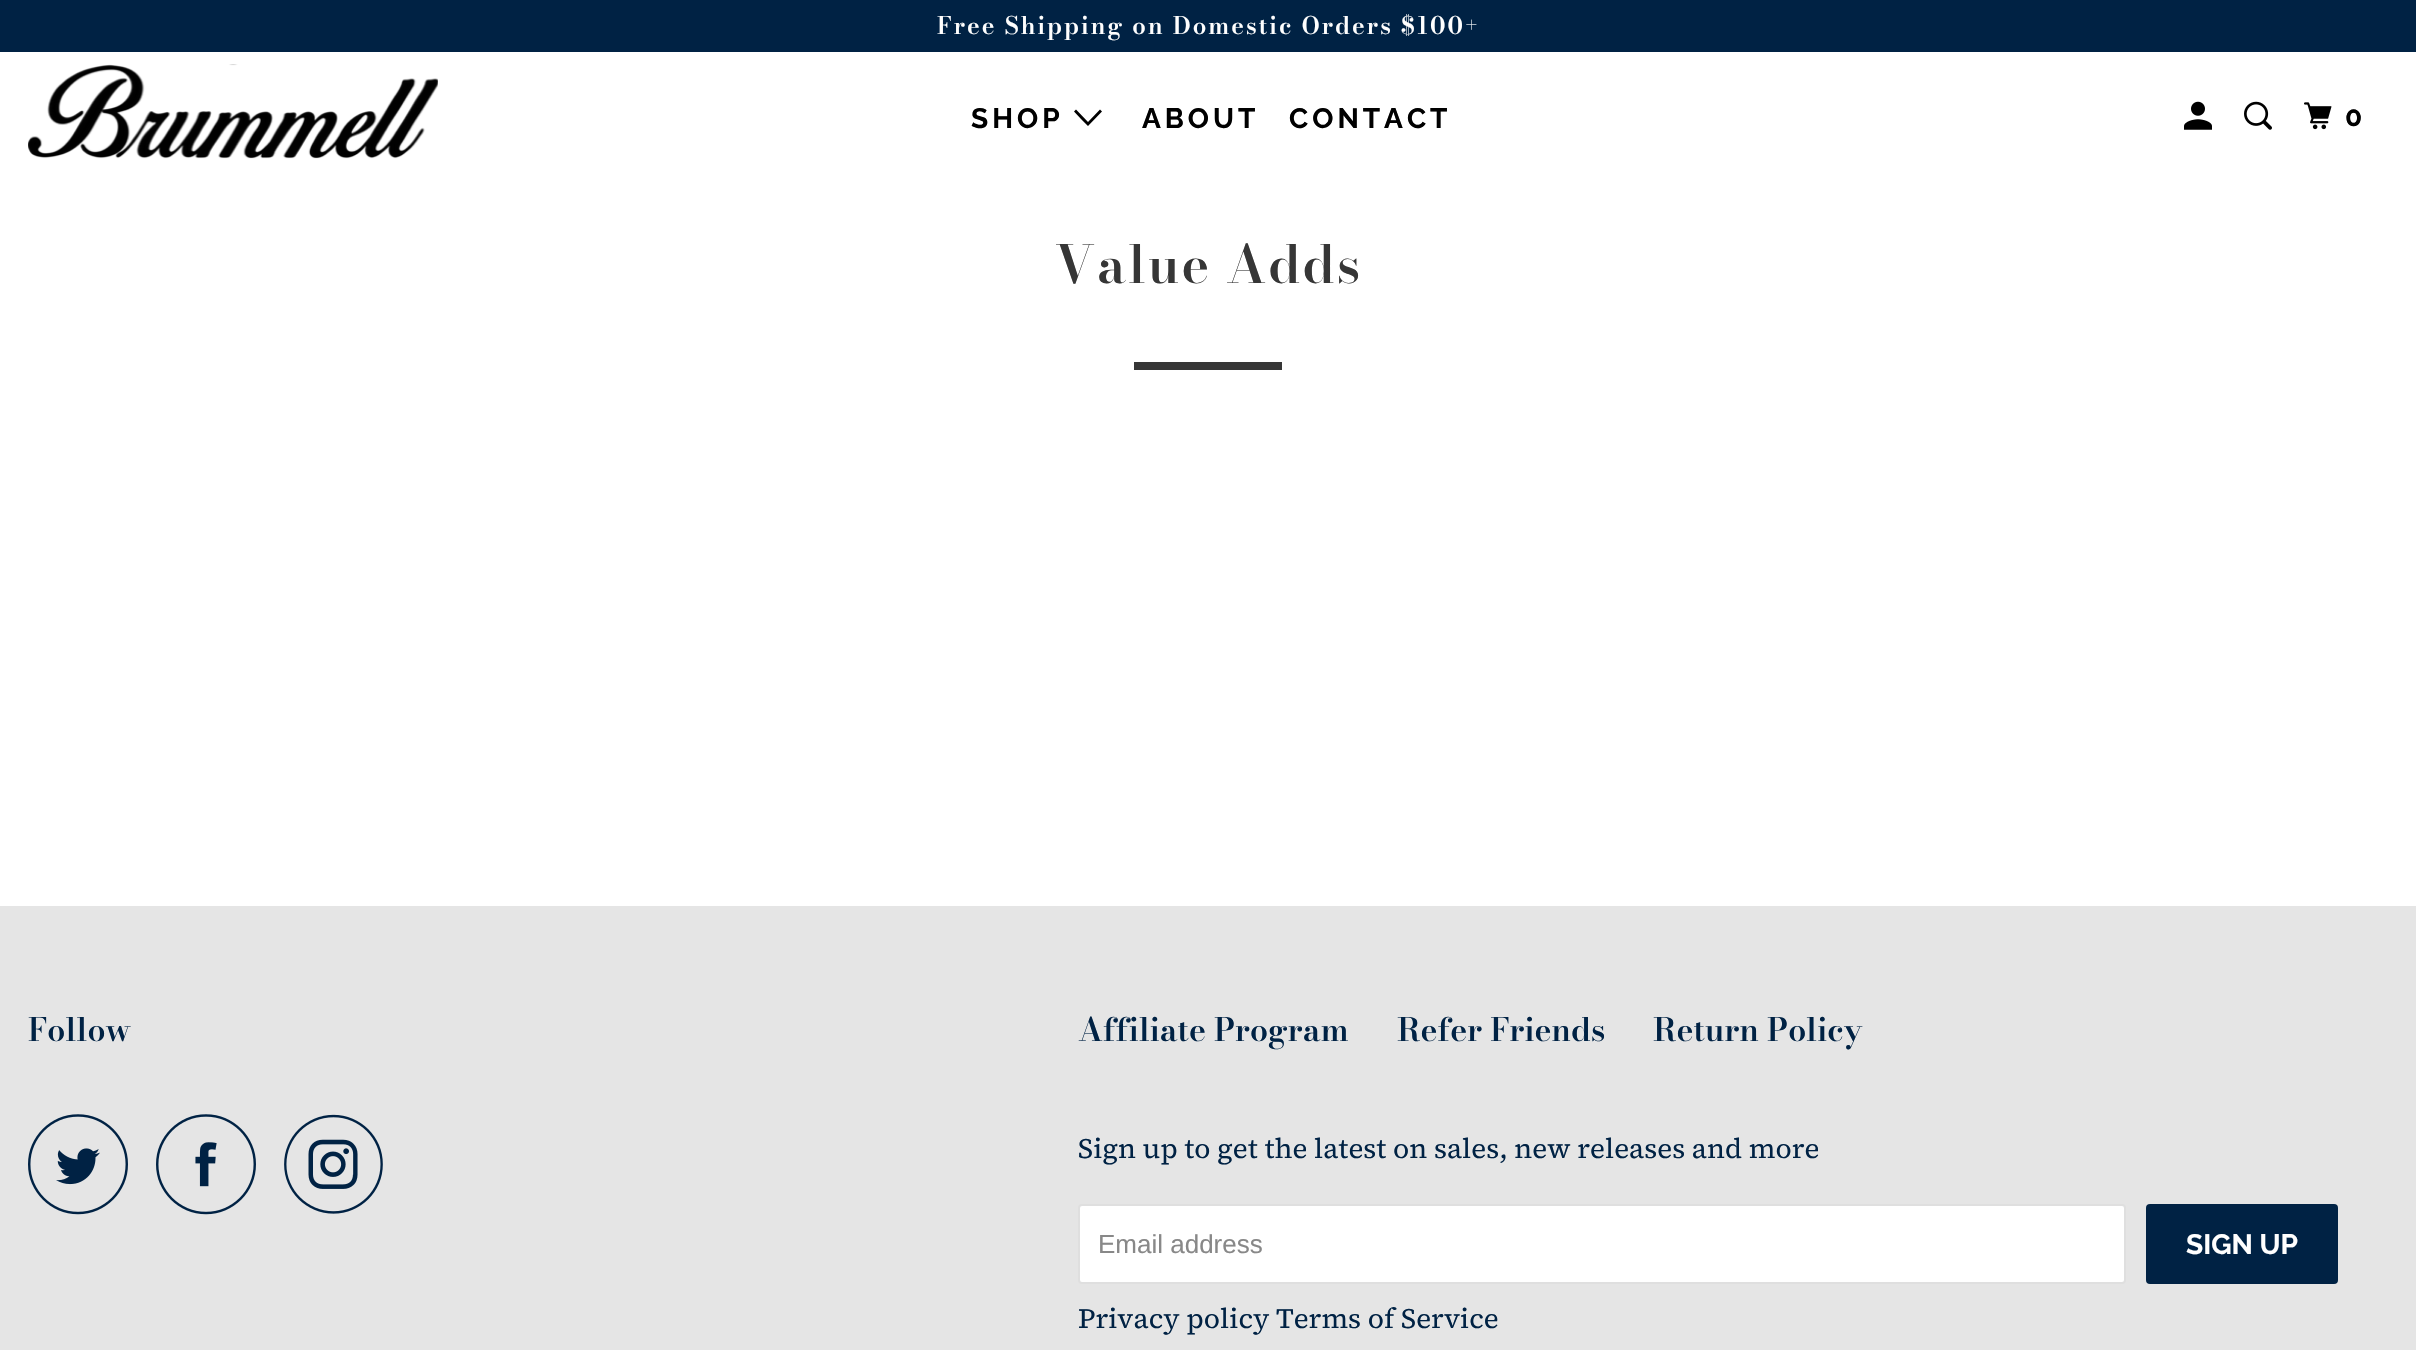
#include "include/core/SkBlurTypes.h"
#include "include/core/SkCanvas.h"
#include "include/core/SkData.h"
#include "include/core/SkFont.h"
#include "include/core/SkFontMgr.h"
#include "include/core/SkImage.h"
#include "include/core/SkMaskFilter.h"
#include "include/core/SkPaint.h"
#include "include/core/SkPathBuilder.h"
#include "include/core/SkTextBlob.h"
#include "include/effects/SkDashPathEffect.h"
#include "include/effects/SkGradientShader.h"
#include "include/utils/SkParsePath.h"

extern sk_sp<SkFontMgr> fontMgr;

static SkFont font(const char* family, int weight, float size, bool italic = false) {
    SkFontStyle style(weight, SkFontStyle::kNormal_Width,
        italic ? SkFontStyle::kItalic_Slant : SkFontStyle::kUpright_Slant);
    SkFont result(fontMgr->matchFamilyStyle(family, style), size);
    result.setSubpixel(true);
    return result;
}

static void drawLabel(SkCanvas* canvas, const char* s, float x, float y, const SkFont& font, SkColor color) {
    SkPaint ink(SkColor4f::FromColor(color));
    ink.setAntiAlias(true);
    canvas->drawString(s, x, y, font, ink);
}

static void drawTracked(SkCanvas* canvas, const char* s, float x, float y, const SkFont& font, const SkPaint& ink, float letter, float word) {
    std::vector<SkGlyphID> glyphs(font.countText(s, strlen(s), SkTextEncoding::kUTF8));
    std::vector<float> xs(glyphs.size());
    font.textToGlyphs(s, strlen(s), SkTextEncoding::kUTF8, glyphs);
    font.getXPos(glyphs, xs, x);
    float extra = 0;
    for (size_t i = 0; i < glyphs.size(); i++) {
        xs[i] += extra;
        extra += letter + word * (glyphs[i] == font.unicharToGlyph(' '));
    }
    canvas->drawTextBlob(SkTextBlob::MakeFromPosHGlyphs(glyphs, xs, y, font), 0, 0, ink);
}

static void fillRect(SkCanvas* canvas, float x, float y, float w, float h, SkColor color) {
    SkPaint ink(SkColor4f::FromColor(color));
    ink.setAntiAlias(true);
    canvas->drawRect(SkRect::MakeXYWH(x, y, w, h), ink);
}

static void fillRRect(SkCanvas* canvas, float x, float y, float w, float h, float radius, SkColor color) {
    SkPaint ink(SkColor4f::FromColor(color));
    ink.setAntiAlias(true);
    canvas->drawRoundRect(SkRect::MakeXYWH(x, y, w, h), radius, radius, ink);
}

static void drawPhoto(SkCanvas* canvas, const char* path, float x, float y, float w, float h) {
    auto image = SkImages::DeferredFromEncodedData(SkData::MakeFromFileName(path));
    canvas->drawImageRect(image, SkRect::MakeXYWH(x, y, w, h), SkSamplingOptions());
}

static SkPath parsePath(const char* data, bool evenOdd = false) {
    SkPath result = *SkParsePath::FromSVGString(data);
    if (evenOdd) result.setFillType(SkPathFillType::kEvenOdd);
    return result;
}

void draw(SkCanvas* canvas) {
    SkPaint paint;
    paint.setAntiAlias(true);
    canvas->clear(0xFFFFFFFF);
    fillRect(canvas, 0, 0, 2416, 52, 0xFF002244);
    SkFont font1 = font("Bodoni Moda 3", 600, 24);
    paint.setColor(0xFFFFFFFF);
    drawTracked(canvas, "Free Shipping on Domestic Orders $100+", 937, 34, font1, paint, 2, 0);
    drawPhoto(canvas, "assets/img1.png", 28, 64, 410, 95);
    SkFont font2 = font("Raleway", 700, 28);
    paint.setColor(0xFF000000);
    drawTracked(canvas, "SHOP", 971, 128, font2, paint, 4, 0);
    canvas->drawPath(parsePath("M1081 119L1074 111.5L1076 109.5L1088 122L1100 109.5L1102 111.5L1088 126Z"), paint);
    drawTracked(canvas, "ABOUT", 1142, 128, font2, paint, 4, 0);
    drawTracked(canvas, "CONTACT", 1289, 128, font2, paint, 4, 0);
    drawPhoto(canvas, "assets/img2.png", 2184, 101, 28, 29);
    drawPhoto(canvas, "assets/img3.png", 2244, 101, 28, 29);
    drawPhoto(canvas, "assets/img4.png", 2304, 102, 28, 28);
    drawTracked(canvas, "0", 2345, 126, font2, paint, 4, 0);
    SkFont font3 = font("Bodoni Moda", 600, 52);
    paint.setColor(0xFF363636);
    drawTracked(canvas, "Value Adds", 1055, 283, font3, paint, 2, 0);
    fillRect(canvas, 1134, 362, 148, 8, 0xFF363636);
    fillRect(canvas, 0, 906, 2416, 444, 0xFFE5E5E5);
    SkFont font4 = font("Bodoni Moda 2", 600, 32);
    drawLabel(canvas, "Follow", 28, 1041, font4, 0xFF002244);
    drawPhoto(canvas, "assets/img5.png", 28, 1114, 100, 101);
    drawPhoto(canvas, "assets/img6.png", 156, 1114, 100, 101);
    drawPhoto(canvas, "assets/img7.png", 284, 1114, 99, 100);
    drawLabel(canvas, "Affiliate Program", 1078, 1041, font4, 0xFF002244);
    drawLabel(canvas, "Refer Friends", 1397, 1041, font4, 0xFF002244);
    drawLabel(canvas, "Return Policy", 1653, 1041, font4, 0xFF002244);
    SkFont font5 = font("Source Serif 4", 400, 28);
    drawLabel(canvas, "Sign up to get the latest on sales, new releases and more", 1078, 1158, font5, 0xFF002244);
    paint.setColor(0xFFFFFFFF);
    canvas->drawRoundRect(SkRect::MakeXYWH(1079, 1205, 1046, 78), 3, 3, paint);
    paint.setStroke(true);
    paint.setStrokeWidth(2);
    paint.setColor(0xFFDFDFDF);
    canvas->drawRoundRect(SkRect::MakeXYWH(1079, 1205, 1046, 78), 3, 3, paint);
    SkFont font6 = font("Liberation Sans", 400, 26);
    drawLabel(canvas, "Email address", 1098, 1253, font6, 0xFF888888);
    fillRRect(canvas, 2146, 1204, 192, 80, 4, 0xFF002244);
    drawLabel(canvas, "SIGN UP", 2186, 1254, font2, 0xFFFFFFFF);
    drawLabel(canvas, "Privacy policy Terms of Service", 1078, 1328, font5, 0xFF002244);
}
